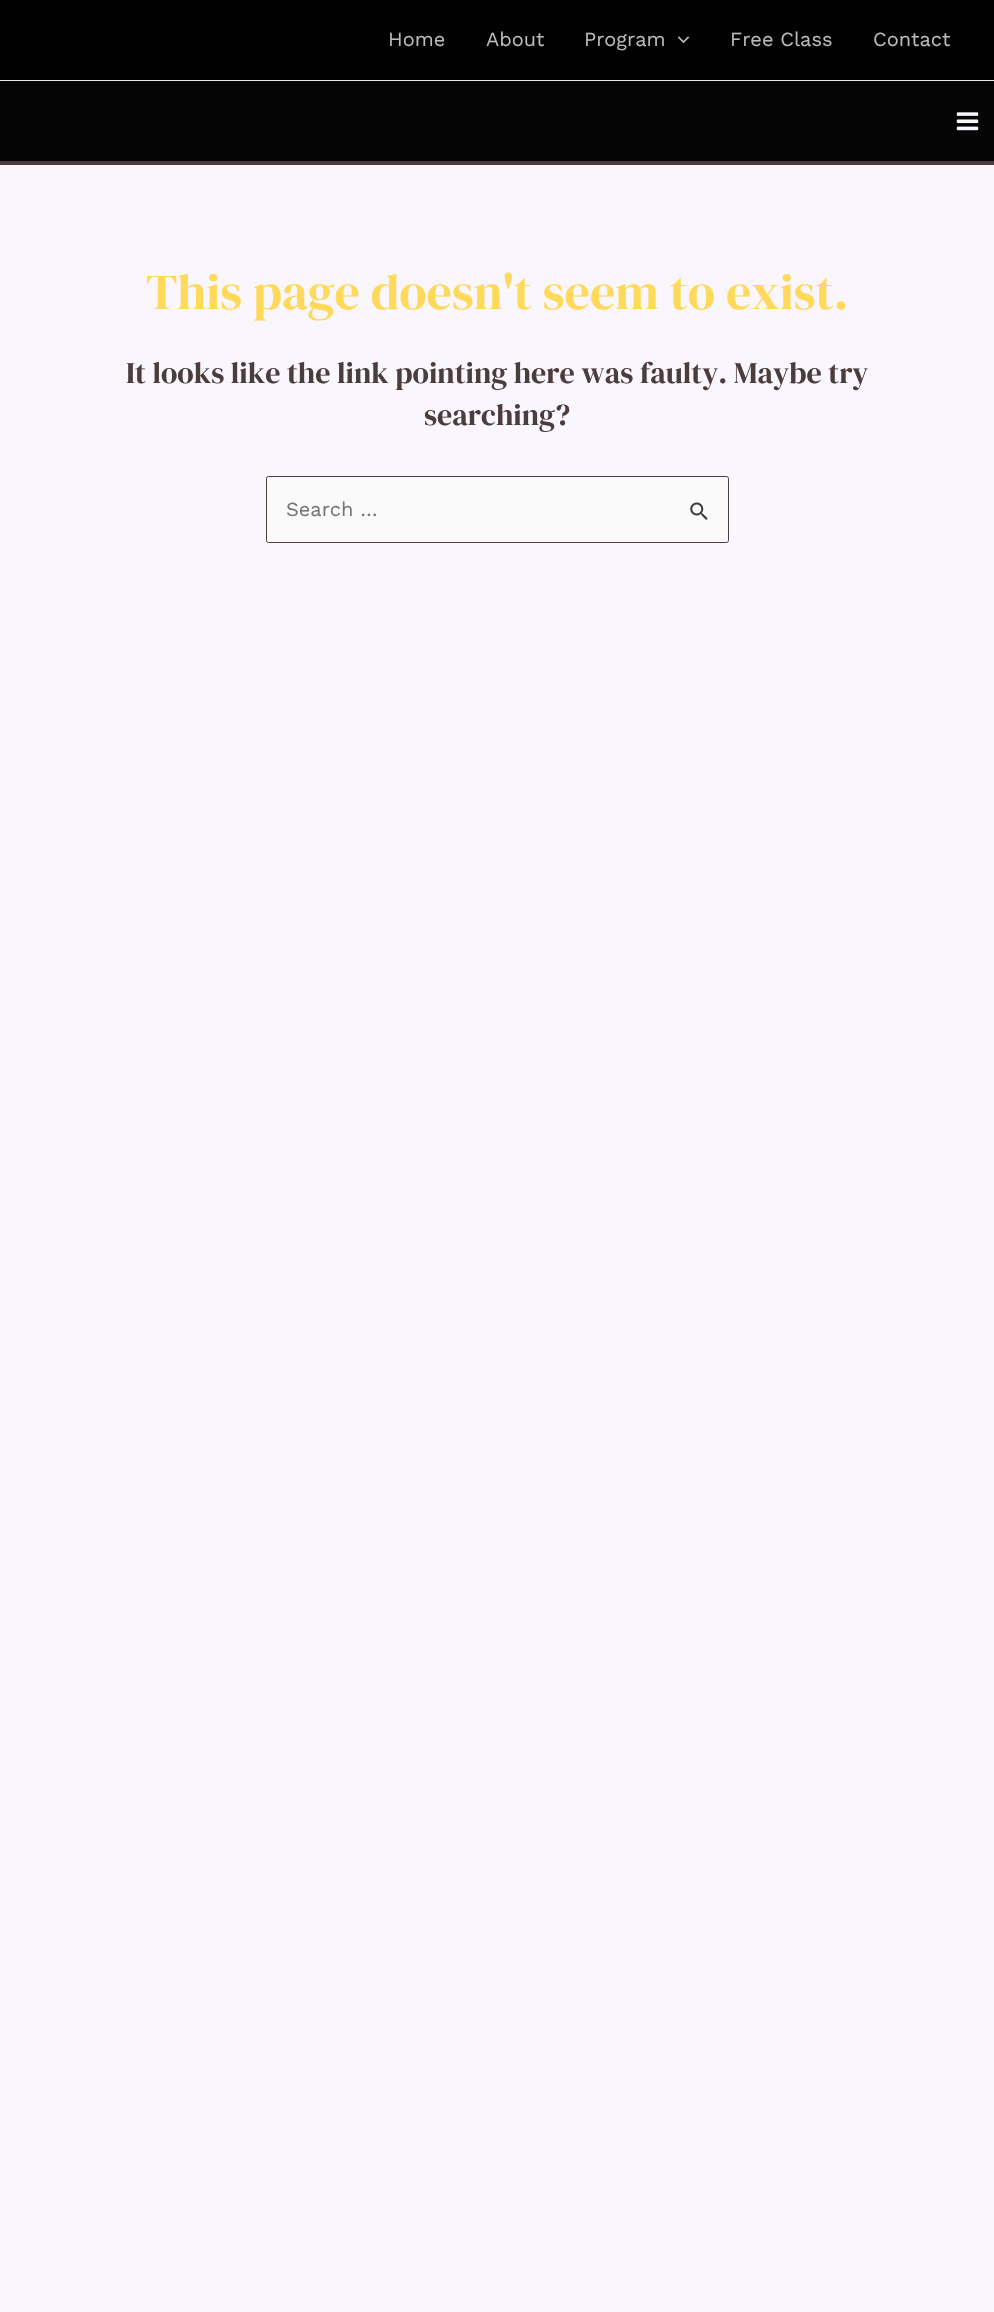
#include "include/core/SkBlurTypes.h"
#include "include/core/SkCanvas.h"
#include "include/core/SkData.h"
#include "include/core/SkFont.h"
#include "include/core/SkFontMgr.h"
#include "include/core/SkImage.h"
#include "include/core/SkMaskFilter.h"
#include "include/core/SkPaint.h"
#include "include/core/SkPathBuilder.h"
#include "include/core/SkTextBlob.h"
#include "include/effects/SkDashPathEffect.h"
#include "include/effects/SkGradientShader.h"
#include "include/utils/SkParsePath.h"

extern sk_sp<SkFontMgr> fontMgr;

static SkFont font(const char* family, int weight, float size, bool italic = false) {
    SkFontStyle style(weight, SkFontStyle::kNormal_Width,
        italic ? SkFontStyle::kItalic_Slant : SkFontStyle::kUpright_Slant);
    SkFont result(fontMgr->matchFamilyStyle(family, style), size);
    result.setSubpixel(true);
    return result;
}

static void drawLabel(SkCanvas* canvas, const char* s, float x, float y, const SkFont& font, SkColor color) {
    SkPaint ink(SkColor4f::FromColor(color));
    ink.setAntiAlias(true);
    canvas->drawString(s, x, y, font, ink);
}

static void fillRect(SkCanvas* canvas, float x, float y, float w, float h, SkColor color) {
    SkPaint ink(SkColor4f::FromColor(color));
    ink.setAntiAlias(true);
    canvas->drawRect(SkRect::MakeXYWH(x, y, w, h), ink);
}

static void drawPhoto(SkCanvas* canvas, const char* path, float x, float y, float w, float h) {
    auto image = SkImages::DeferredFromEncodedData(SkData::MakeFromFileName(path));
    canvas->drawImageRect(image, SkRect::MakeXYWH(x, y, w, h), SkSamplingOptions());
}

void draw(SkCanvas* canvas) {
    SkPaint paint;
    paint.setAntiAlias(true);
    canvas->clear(0xFFF9F6FE);
    fillRect(canvas, 0, 0, 994, 80, 0xFF010101);
    fillRect(canvas, 0, 80, 994, 1, 0xFFEAEAEA);
    SkFont font1 = font("Work Sans", 400, 20);
    drawLabel(canvas, "Home", 388, 46, font1, 0xFFB8BABC);
    drawLabel(canvas, "About", 486, 46, font1, 0xFFB8BABC);
    drawLabel(canvas, "Program", 584, 46, font1, 0xFFB8BABC);
    drawPhoto(canvas, "assets/img1.png", 678, 36, 12, 8);
    drawLabel(canvas, "Free Class", 730, 46, font1, 0xFFB8BABC);
    drawLabel(canvas, "Contact", 873, 46, font1, 0xFFB8BABC);
    fillRect(canvas, 0, 81, 994, 80, 0xFF050505);
    fillRect(canvas, 0, 161, 994, 4, 0xFF4C3D3D);
    drawPhoto(canvas, "assets/img2.png", 956, 112, 23, 19);
    SkFont font2 = font("DM Serif Display", 400, 50);
    drawLabel(canvas, "This page doesn't seem to exist.", 146, 309, font2, 0xFFFFD95A);
    SkFont font3 = font("DM Serif Display", 400, 30);
    drawLabel(canvas, "It looks like the link pointing here was faulty. Maybe try", 126, 383, font3, 0xFF4C3D3D);
    drawLabel(canvas, "searching?", 424, 425, font3, 0xFF4C3D3D);
    paint.setColor(0xFFFAFAFA);
    canvas->drawRoundRect(SkRect::MakeXYWH(266.5f, 476.5f, 462, 66), 2, 2, paint);
    paint.setStroke(true);
    paint.setStrokeWidth(1);
    paint.setColor(0xFF4C3D3D);
    canvas->drawRoundRect(SkRect::MakeXYWH(266.5f, 476.5f, 462, 66), 2, 2, paint);
    drawLabel(canvas, "Search …", 286, 516, font1, 0xFF757575);
    drawPhoto(canvas, "assets/img3.png", 690, 502, 18, 18);
}
